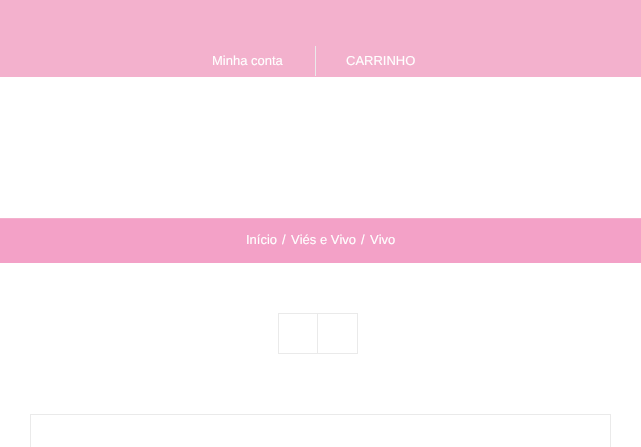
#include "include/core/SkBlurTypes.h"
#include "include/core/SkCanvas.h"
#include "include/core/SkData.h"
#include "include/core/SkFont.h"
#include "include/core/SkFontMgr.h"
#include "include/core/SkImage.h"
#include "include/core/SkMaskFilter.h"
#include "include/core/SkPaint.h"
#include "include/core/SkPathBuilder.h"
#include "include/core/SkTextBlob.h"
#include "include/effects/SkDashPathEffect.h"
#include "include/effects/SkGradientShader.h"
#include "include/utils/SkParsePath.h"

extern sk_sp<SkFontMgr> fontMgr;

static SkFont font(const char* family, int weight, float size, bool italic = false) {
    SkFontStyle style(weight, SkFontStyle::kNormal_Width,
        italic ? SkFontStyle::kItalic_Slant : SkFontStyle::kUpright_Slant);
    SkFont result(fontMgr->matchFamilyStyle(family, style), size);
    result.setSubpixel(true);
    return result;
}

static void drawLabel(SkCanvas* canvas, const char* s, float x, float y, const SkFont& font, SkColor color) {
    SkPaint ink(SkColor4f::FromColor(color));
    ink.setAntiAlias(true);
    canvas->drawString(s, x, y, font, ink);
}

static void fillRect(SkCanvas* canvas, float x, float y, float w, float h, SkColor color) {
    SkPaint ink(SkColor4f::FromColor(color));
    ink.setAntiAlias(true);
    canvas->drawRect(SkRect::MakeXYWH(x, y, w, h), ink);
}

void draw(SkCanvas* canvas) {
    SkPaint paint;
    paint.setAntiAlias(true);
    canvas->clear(0xFFFFFFFF);
    fillRect(canvas, 0, 0, 641, 77, 0xFFF3B1CD);
    SkFont font1 = font("Liberation Sans", 400, 13);
    drawLabel(canvas, "Minha conta", 212, 65, font1, 0xFFFFFFFF);
    fillRect(canvas, 315, 46, 1, 30, 0xFFEAEAEA);
    drawLabel(canvas, "CARRINHO", 346, 65, font1, 0xFFFFFFFF);
    fillRect(canvas, 0, 218, 641, 1, 0xFFF3B1CD);
    fillRect(canvas, 0, 219, 641, 44, 0xFFF3A1C7);
    drawLabel(canvas, "Início", 246, 244, font1, 0xFFFFFFFF);
    drawLabel(canvas, "/", 282, 244, font1, 0xFFFFFFFF);
    drawLabel(canvas, "Viés e Vivo", 291, 244, font1, 0xFFFFFFFF);
    drawLabel(canvas, "/", 361, 244, font1, 0xFFFFFFFF);
    drawLabel(canvas, "Vivo", 370, 244, font1, 0xFFFFFFFF);
    paint.setStroke(true);
    paint.setStrokeWidth(1);
    paint.setColor(0xFFEAEAEA);
    canvas->drawRect(SkRect::MakeXYWH(278.5f, 313.5f, 79, 40), paint);
    fillRect(canvas, 317, 314, 1, 39, 0xFFEAEAEA);
    fillRect(canvas, 30, 414, 581, 1, 0xFFEAEAEA);
    fillRect(canvas, 610, 414, 1, 33, 0xFFEAEAEA);
    fillRect(canvas, 30, 414, 1, 33, 0xFFEAEAEA);
}
